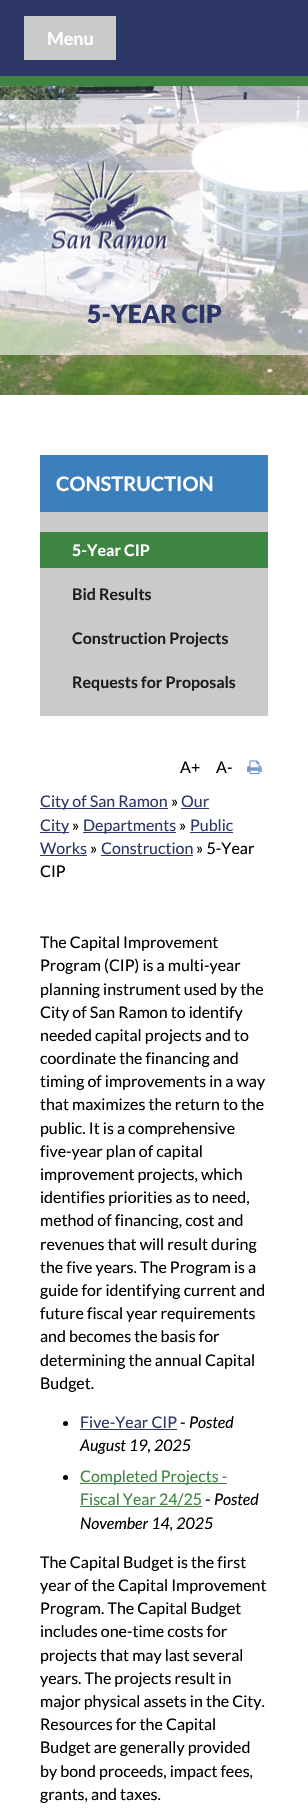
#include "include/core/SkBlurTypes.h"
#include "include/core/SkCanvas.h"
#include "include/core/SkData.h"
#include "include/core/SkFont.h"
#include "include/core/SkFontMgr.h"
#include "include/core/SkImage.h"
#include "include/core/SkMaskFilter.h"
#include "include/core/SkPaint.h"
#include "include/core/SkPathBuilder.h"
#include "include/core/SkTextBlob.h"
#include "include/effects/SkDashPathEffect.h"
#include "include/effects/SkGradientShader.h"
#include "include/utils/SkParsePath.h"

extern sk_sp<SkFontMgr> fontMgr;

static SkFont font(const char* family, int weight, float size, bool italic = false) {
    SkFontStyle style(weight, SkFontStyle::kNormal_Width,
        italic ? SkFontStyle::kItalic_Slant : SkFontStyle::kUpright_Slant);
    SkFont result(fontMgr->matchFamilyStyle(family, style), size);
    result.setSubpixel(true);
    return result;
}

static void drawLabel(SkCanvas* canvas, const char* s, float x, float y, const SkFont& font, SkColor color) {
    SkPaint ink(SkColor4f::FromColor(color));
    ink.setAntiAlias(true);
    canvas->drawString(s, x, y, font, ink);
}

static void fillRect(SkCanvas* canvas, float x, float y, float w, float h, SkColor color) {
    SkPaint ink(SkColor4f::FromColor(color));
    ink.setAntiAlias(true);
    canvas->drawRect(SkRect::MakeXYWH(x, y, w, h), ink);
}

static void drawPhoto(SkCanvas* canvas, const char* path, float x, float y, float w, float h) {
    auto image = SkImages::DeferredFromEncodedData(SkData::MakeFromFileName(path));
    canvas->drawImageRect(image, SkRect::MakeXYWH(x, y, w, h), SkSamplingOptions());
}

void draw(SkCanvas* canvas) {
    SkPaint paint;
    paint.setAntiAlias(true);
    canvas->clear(0xFFFFFFFF);
    fillRect(canvas, 0, 0, 308, 76, 0xFF2C3768);
    fillRect(canvas, 0, 76, 308, 10, 0xFF3D8541);
    fillRect(canvas, 24, 16, 92, 44, 0xFFCACACA);
    SkFont font1 = font("Lato", 700, 18);
    drawLabel(canvas, "Menu", 47, 45, font1, 0xFFFFFFFF);
    drawPhoto(canvas, "assets/img1.png", 0, 86, 308, 309);
    fillRect(canvas, 0, 100, 308, 255, 0x99FFFFFF);
    drawPhoto(canvas, "assets/img2.png", 44, 160, 130, 95);
    SkFont font2 = font("Lato", 900, 25);
    drawLabel(canvas, "5-YEAR CIP", 87, 323, font2, 0xFF2C3768);
    fillRect(canvas, 40, 512, 228, 204, 0xFFCACACA);
    fillRect(canvas, 40, 455, 228, 57, 0xFF3C7FBD);
    SkFont font3 = font("Lato", 700, 20);
    drawLabel(canvas, "CONSTRUCTION", 56, 491, font3, 0xFFFFFFFF);
    fillRect(canvas, 40, 532, 228, 36, 0xFF3D8541);
    SkFont font4 = font("Lato", 700, 16);
    drawLabel(canvas, "5-Year CIP", 72, 556, font4, 0xFFFFFFFF);
    drawLabel(canvas, "Bid Results", 72, 600, font4, 0xFF1E1C1D);
    drawLabel(canvas, "Construction Projects", 72, 644, font4, 0xFF1E1C1D);
    drawLabel(canvas, "Requests for Proposals", 72, 688, font4, 0xFF1E1C1D);
    SkFont font5 = font("Lato", 400, 16);
    drawLabel(canvas, "A+", 180, 773, font5, 0xFF000000);
    drawLabel(canvas, "A-", 216, 773, font5, 0xFF000000);
    drawPhoto(canvas, "assets/img3.png", 247, 760, 15, 15);
    fillRect(canvas, 40, 808, 128, 1, 0xFF2C3768);
    drawLabel(canvas, "City of San Ramon", 40, 807, font5, 0xFF2C3768);
    drawLabel(canvas, "»", 171, 807, font5, 0xFF000000);
    drawLabel(canvas, "Our", 181, 807, font5, 0xFF2C3768);
    fillRect(canvas, 181, 808, 28, 1, 0xFF2C3768);
    fillRect(canvas, 40, 832, 29, 1, 0xFF2C3768);
    drawLabel(canvas, "City", 40, 831, font5, 0xFF2C3768);
    drawLabel(canvas, "»", 72, 831, font5, 0xFF000000);
    fillRect(canvas, 83, 832, 93, 1, 0xFF2C3768);
    drawLabel(canvas, "Departments", 83, 831, font5, 0xFF2C3768);
    drawLabel(canvas, "»", 179, 831, font5, 0xFF000000);
    drawLabel(canvas, "Public", 190, 831, font5, 0xFF2C3768);
    fillRect(canvas, 190, 832, 43, 1, 0xFF2C3768);
    drawLabel(canvas, "Works", 40, 854, font5, 0xFF2C3768);
    fillRect(canvas, 40, 855, 47, 1, 0xFF2C3768);
    drawLabel(canvas, "»", 90, 854, font5, 0xFF000000);
    drawLabel(canvas, "Construction", 101, 854, font5, 0xFF2C3768);
    fillRect(canvas, 101, 855, 92, 1, 0xFF2C3768);
    drawLabel(canvas, "» 5-Year", 196, 854, font5, 0xFF000000);
    drawLabel(canvas, "CIP", 40, 877, font5, 0xFF000000);
    drawLabel(canvas, "The Capital Improvement", 40, 948, font5, 0xFF000000);
    drawLabel(canvas, "Program (CIP) is a multi-year", 40, 971, font5, 0xFF000000);
    drawLabel(canvas, "planning instrument used by the", 40, 995, font5, 0xFF000000);
    drawLabel(canvas, "City of San Ramon to identify", 40, 1018, font5, 0xFF000000);
    drawLabel(canvas, "needed capital projects and to", 40, 1041, font5, 0xFF000000);
    drawLabel(canvas, "coordinate the financing and", 40, 1064, font5, 0xFF000000);
    drawLabel(canvas, "timing of improvements in a way", 40, 1087, font5, 0xFF000000);
    drawLabel(canvas, "that maximizes the return to the", 40, 1110, font5, 0xFF000000);
    drawLabel(canvas, "public. It is a comprehensive", 40, 1134, font5, 0xFF000000);
    drawLabel(canvas, "five-year plan of capital", 40, 1157, font5, 0xFF000000);
    drawLabel(canvas, "improvement projects, which", 40, 1180, font5, 0xFF000000);
    drawLabel(canvas, "identifies priorities as to need,", 40, 1203, font5, 0xFF000000);
    drawLabel(canvas, "method of financing, cost and", 40, 1226, font5, 0xFF000000);
    drawLabel(canvas, "revenues that will result during", 40, 1250, font5, 0xFF000000);
    drawLabel(canvas, "the five years. The Program is a", 40, 1273, font5, 0xFF000000);
    drawLabel(canvas, "guide for identifying current and", 40, 1296, font5, 0xFF000000);
    drawLabel(canvas, "future fiscal year requirements", 40, 1319, font5, 0xFF000000);
    drawLabel(canvas, "and becomes the basis for", 40, 1342, font5, 0xFF000000);
    drawLabel(canvas, "determining the annual Capital", 40, 1366, font5, 0xFF000000);
    drawLabel(canvas, "Budget.", 40, 1389, font5, 0xFF000000);
    paint.setColor(0xFF000000);
    canvas->drawCircle(65.5f, 1423.5f, 2.5f, paint);
    drawLabel(canvas, "Five-Year CIP", 80, 1428, font5, 0xFF2C3768);
    fillRect(canvas, 80, 1429, 97, 1, 0xFF2C3768);
    drawLabel(canvas, "-", 180, 1428, font5, 0xFF000000);
    SkFont font6 = font("Lato", 400, 16, true);
    drawLabel(canvas, "Posted", 189, 1428, font6, 0xFF000000);
    drawLabel(canvas, "August 19, 2025", 80, 1451, font6, 0xFF000000);
    canvas->drawCircle(65.5f, 1477.5f, 2.5f, paint);
    fillRect(canvas, 80, 1483, 147, 1, 0xFF3D8541);
    drawLabel(canvas, "Completed Projects -", 80, 1482, font5, 0xFF3D8541);
    drawLabel(canvas, "Fiscal Year 24/25", 80, 1505, font5, 0xFF3D8541);
    fillRect(canvas, 80, 1506, 122, 1, 0xFF3D8541);
    drawLabel(canvas, "-", 205, 1505, font5, 0xFF000000);
    drawLabel(canvas, "Posted", 214, 1505, font6, 0xFF000000);
    drawLabel(canvas, "November 14, 2025", 80, 1529, font6, 0xFF000000);
    drawLabel(canvas, "The Capital Budget is the first", 40, 1568, font5, 0xFF000000);
    drawLabel(canvas, "year of the Capital Improvement", 40, 1591, font5, 0xFF000000);
    drawLabel(canvas, "Program. The Capital Budget", 40, 1614, font5, 0xFF000000);
    drawLabel(canvas, "includes one-time costs for", 40, 1637, font5, 0xFF000000);
    drawLabel(canvas, "projects that may last several", 40, 1661, font5, 0xFF000000);
    drawLabel(canvas, "years. The projects result in", 40, 1684, font5, 0xFF000000);
    drawLabel(canvas, "major physical assets in the City.", 40, 1707, font5, 0xFF000000);
    drawLabel(canvas, "Resources for the Capital", 40, 1730, font5, 0xFF000000);
    drawLabel(canvas, "Budget are generally provided", 40, 1753, font5, 0xFF000000);
    drawLabel(canvas, "by bond proceeds, impact fees,", 40, 1777, font5, 0xFF000000);
    drawLabel(canvas, "grants, and taxes.", 40, 1800, font5, 0xFF000000);
}
